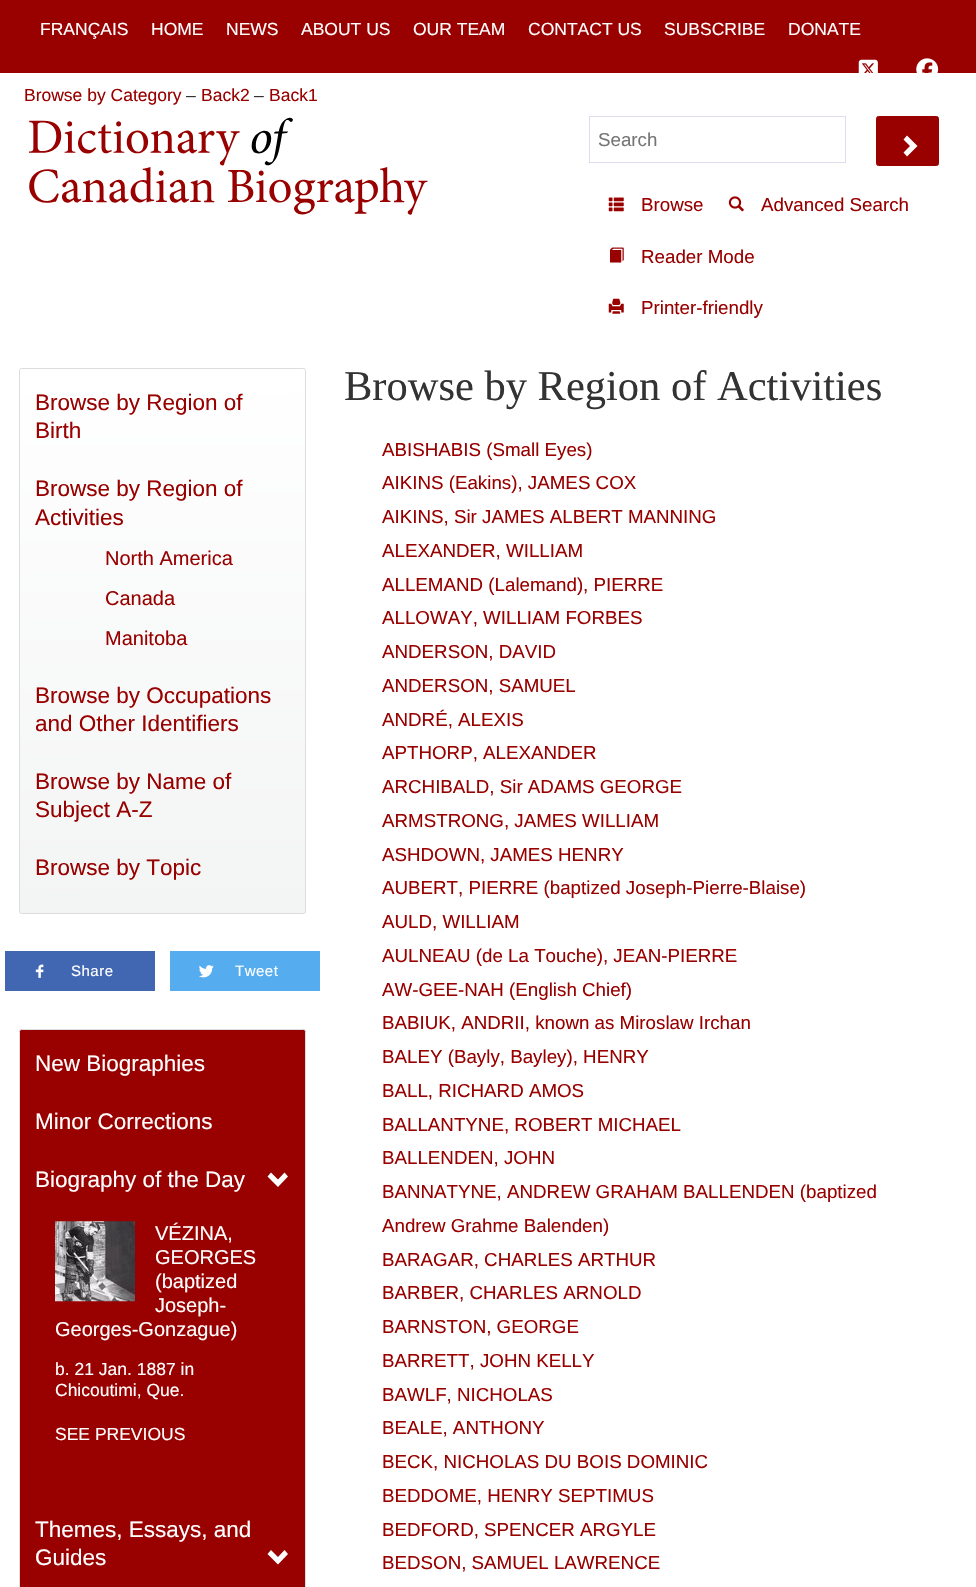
#include "include/core/SkBlurTypes.h"
#include "include/core/SkCanvas.h"
#include "include/core/SkData.h"
#include "include/core/SkFont.h"
#include "include/core/SkFontMgr.h"
#include "include/core/SkImage.h"
#include "include/core/SkMaskFilter.h"
#include "include/core/SkPaint.h"
#include "include/core/SkPathBuilder.h"
#include "include/core/SkTextBlob.h"
#include "include/effects/SkDashPathEffect.h"
#include "include/effects/SkGradientShader.h"
#include "include/utils/SkParsePath.h"

extern sk_sp<SkFontMgr> fontMgr;

static SkFont font(const char* family, int weight, float size, bool italic = false) {
    SkFontStyle style(weight, SkFontStyle::kNormal_Width,
        italic ? SkFontStyle::kItalic_Slant : SkFontStyle::kUpright_Slant);
    SkFont result(fontMgr->matchFamilyStyle(family, style), size);
    result.setSubpixel(true);
    return result;
}

static void drawLabel(SkCanvas* canvas, const char* s, float x, float y, const SkFont& font, SkColor color) {
    SkPaint ink(SkColor4f::FromColor(color));
    ink.setAntiAlias(true);
    canvas->drawString(s, x, y, font, ink);
}

static void drawTracked(SkCanvas* canvas, const char* s, float x, float y, const SkFont& font, const SkPaint& ink, float letter, float word) {
    std::vector<SkGlyphID> glyphs(font.countText(s, strlen(s), SkTextEncoding::kUTF8));
    std::vector<float> xs(glyphs.size());
    font.textToGlyphs(s, strlen(s), SkTextEncoding::kUTF8, glyphs);
    font.getXPos(glyphs, xs, x);
    float extra = 0;
    for (size_t i = 0; i < glyphs.size(); i++) {
        xs[i] += extra;
        extra += letter + word * (glyphs[i] == font.unicharToGlyph(' '));
    }
    canvas->drawTextBlob(SkTextBlob::MakeFromPosHGlyphs(glyphs, xs, y, font), 0, 0, ink);
}

static void fillRect(SkCanvas* canvas, float x, float y, float w, float h, SkColor color) {
    SkPaint ink(SkColor4f::FromColor(color));
    ink.setAntiAlias(true);
    canvas->drawRect(SkRect::MakeXYWH(x, y, w, h), ink);
}

static void drawPhoto(SkCanvas* canvas, const char* path, float x, float y, float w, float h) {
    auto image = SkImages::DeferredFromEncodedData(SkData::MakeFromFileName(path));
    canvas->drawImageRect(image, SkRect::MakeXYWH(x, y, w, h), SkSamplingOptions());
}

static SkPath parsePath(const char* data, bool evenOdd = false) {
    SkPath result = *SkParsePath::FromSVGString(data);
    if (evenOdd) result.setFillType(SkPathFillType::kEvenOdd);
    return result;
}

void draw(SkCanvas* canvas) {
    SkPaint paint;
    paint.setAntiAlias(true);
    canvas->clear(0xFFFFFFFF);
    fillRect(canvas, 0, 0, 976, 73, 0xFF990000);
    SkFont font1 = font("Liberation Sans", 400, 17.5f);
    drawLabel(canvas, "FRANÇAIS", 40, 35, font1, 0xFFFFFFFF);
    drawLabel(canvas, "HOME", 151, 35, font1, 0xFFFFFFFF);
    drawLabel(canvas, "NEWS", 226, 35, font1, 0xFFFFFFFF);
    drawLabel(canvas, "ABOUT US", 301, 35, font1, 0xFFFFFFFF);
    drawLabel(canvas, "OUR TEAM", 413, 35, font1, 0xFFFFFFFF);
    drawLabel(canvas, "CONTACT US", 528, 35, font1, 0xFFFFFFFF);
    drawLabel(canvas, "SUBSCRIBE", 664, 35, font1, 0xFFFFFFFF);
    drawLabel(canvas, "DONATE", 788, 35, font1, 0xFFFFFFFF);
    drawPhoto(canvas, "assets/img1.png", 858, 59, 20, 14);
    drawPhoto(canvas, "assets/img2.png", 916, 58, 23, 15);
    drawLabel(canvas, "Browse by Category", 24, 101, font1, 0xFF990000);
    drawLabel(canvas, "–", 186, 101, font1, 0xFF333333);
    drawLabel(canvas, "Back2", 201, 101, font1, 0xFF990000);
    drawLabel(canvas, "–", 254, 101, font1, 0xFF333333);
    drawLabel(canvas, "Back1", 269, 101, font1, 0xFF990000);
    drawPhoto(canvas, "assets/img3.png", 29, 117, 399, 98);
    paint.setStroke(true);
    paint.setStrokeWidth(1);
    paint.setColor(0xFFDCDDEE);
    canvas->drawRect(SkRect::MakeXYWH(589.5f, 116.5f, 256, 46), paint);
    SkFont font2 = font("Liberation Sans", 400, 18.75f);
    drawLabel(canvas, "Search", 598, 146, font2, 0xFF757575);
    paint.setStroke(false);
    paint.setColor(0xFF990000);
    canvas->drawRoundRect(SkRect::MakeXYWH(876.5f, 116.5f, 62, 49), 2, 2, paint);
    paint.setStroke(true);
    canvas->drawRoundRect(SkRect::MakeXYWH(876.5f, 116.5f, 62, 49), 2, 2, paint);
    paint.setStroke(false);
    paint.setColor(0xFFFFFFFF);
    canvas->drawPath(parsePath("M917.5 146L907 156.5L903.5 152.5L910 146L903.5 139.5L907 135.5Z"), paint);
    drawPhoto(canvas, "assets/img4.png", 608, 197, 16, 15);
    drawLabel(canvas, "Browse", 641, 211, font2, 0xFF990000);
    drawPhoto(canvas, "assets/img5.png", 728, 196, 16, 16);
    drawLabel(canvas, "Advanced Search", 761, 211, font2, 0xFF990000);
    drawPhoto(canvas, "assets/img6.png", 610, 247, 14, 16);
    drawLabel(canvas, "Reader Mode", 641, 263, font2, 0xFF990000);
    drawPhoto(canvas, "assets/img7.png", 608, 298, 16, 16);
    drawLabel(canvas, "Printer-friendly", 641, 314, font2, 0xFF990000);
    canvas->save();
    canvas->clipPath(parsePath("M21.5 368H303.5C305 368 306 369 306 370.5V911.5C306 913 305 914 303.5 914H21.5C20 914 19 913 19 911.5V370.5C19 369 20 368 21.5 368Z"), true);
    {
        const SkColor colors[] = {0xFFFFFFFF, 0xFFF3F4F4};
        const float stops[] = {0, 1};
        const SkPoint ends[] = {{162, 369}, {163, 913}};
        paint.setShader(SkGradientShader::MakeLinear(ends, colors, stops, 2, SkTileMode::kClamp));
        paint.setAlpha(255);
    }
    canvas->drawRect(SkRect::MakeXYWH(19, 369, 287, 544), paint);
    canvas->restore();
    paint.setStroke(true);
    paint.setShader(nullptr);
    paint.setColor(0xFFDCDDDE);
    canvas->drawRoundRect(SkRect::MakeXYWH(19.5f, 368.5f, 286, 545), 2, 2, paint);
    SkFont font3 = font("Liberation Sans", 400, 22.5f);
    drawLabel(canvas, "Browse by Region of", 35, 410, font3, 0xFF990000);
    drawLabel(canvas, "Birth", 35, 438, font3, 0xFF990000);
    drawLabel(canvas, "Browse by Region of", 35, 496, font3, 0xFF990000);
    drawLabel(canvas, "Activities", 35, 525, font3, 0xFF990000);
    SkFont font4 = font("Liberation Sans", 400, 20);
    drawLabel(canvas, "North America", 105, 565, font4, 0xFF990000);
    drawLabel(canvas, "Canada", 105, 605, font4, 0xFF990000);
    drawLabel(canvas, "Manitoba", 105, 645, font4, 0xFF990000);
    drawLabel(canvas, "Browse by Occupations", 35, 703, font3, 0xFF990000);
    drawLabel(canvas, "and Other Identifiers", 35, 731, font3, 0xFF990000);
    drawLabel(canvas, "Browse by Name of", 35, 789, font3, 0xFF990000);
    drawLabel(canvas, "Subject A-Z", 35, 817, font3, 0xFF990000);
    drawLabel(canvas, "Browse by Topic", 35, 875, font3, 0xFF990000);
    fillRect(canvas, 5, 951, 150, 40, 0xFF4267B2);
    drawPhoto(canvas, "assets/img8.png", 35, 964, 9, 14);
    SkFont font5 = font("Liberation Sans", 400, 15);
    paint.setStroke(false);
    paint.setColor(0xFFFFFFFF);
    drawTracked(canvas, "Share", 71, 976, font5, paint, 0.5f, 0);
    fillRect(canvas, 170, 951, 150, 40, 0xFF55ACEE);
    drawPhoto(canvas, "assets/img9.png", 199, 965, 15, 13);
    drawTracked(canvas, "Tweet", 235, 976, font5, paint, 0.5f, 0);
    paint.setColor(0xFF990000);
    canvas->drawRoundRect(SkRect::MakeXYWH(19.5f, 1029.5f, 286, 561), 2, 2, paint);
    paint.setStroke(true);
    paint.setColor(0xFFDCDDDE);
    canvas->drawRoundRect(SkRect::MakeXYWH(19.5f, 1029.5f, 286, 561), 2, 2, paint);
    drawLabel(canvas, "New Biographies", 35, 1071, font3, 0xFFFFFFFF);
    drawLabel(canvas, "Minor Corrections", 35, 1129, font3, 0xFFFFFFFF);
    drawLabel(canvas, "Biography of the Day", 35, 1187, font3, 0xFFFFFFFF);
    paint.setStroke(false);
    paint.setColor(0xFFFFFFFF);
    canvas->drawPath(parsePath("M288 1176.5L278 1187L267.5 1176.5L271 1172.5L278 1179.5L284.5 1172.5Z"), paint);
    drawPhoto(canvas, "assets/img10.png", 55, 1221, 80, 81);
    drawLabel(canvas, "VÉZINA,", 155, 1240, font4, 0xFFFFFFFF);
    drawLabel(canvas, "GEORGES", 155, 1264, font4, 0xFFFFFFFF);
    drawLabel(canvas, "(baptized", 155, 1288, font4, 0xFFFFFFFF);
    drawLabel(canvas, "Joseph-", 155, 1312, font4, 0xFFFFFFFF);
    drawLabel(canvas, "Georges-Gonzague)", 55, 1336, font4, 0xFFFFFFFF);
    drawLabel(canvas, "b. 21 Jan. 1887 in", 55, 1375, font1, 0xFFFFFFFF);
    drawLabel(canvas, "Chicoutimi, Que.", 55, 1396, font1, 0xFFFFFFFF);
    drawLabel(canvas, "SEE PREVIOUS", 55, 1440, font1, 0xFFFFFFFF);
    drawLabel(canvas, "Themes, Essays, and", 35, 1537, font3, 0xFFFFFFFF);
    drawLabel(canvas, "Guides", 35, 1565, font3, 0xFFFFFFFF);
    canvas->drawPath(parsePath("M288 1554L278 1564.5L267.5 1554L271 1550L278 1557L284.5 1550Z"), paint);
    SkFont font6 = font("Liberation Serif", 400, 42.5f);
    drawLabel(canvas, "Browse by Region of Activities", 344, 400, font6, 0xFF333333);
    drawLabel(canvas, "ABISHABIS (Small Eyes)", 382, 456, font2, 0xFF990000);
    drawLabel(canvas, "AIKINS (Eakins), JAMES COX", 382, 489, font2, 0xFF990000);
    drawLabel(canvas, "AIKINS, Sir JAMES ALBERT MANNING", 382, 523, font2, 0xFF990000);
    drawLabel(canvas, "ALEXANDER, WILLIAM", 382, 557, font2, 0xFF990000);
    drawLabel(canvas, "ALLEMAND (Lalemand), PIERRE", 382, 591, font2, 0xFF990000);
    drawLabel(canvas, "ALLOWAY, WILLIAM FORBES", 382, 624, font2, 0xFF990000);
    drawLabel(canvas, "ANDERSON, DAVID", 382, 658, font2, 0xFF990000);
    drawLabel(canvas, "ANDERSON, SAMUEL", 382, 692, font2, 0xFF990000);
    drawLabel(canvas, "ANDRÉ, ALEXIS", 382, 726, font2, 0xFF990000);
    drawLabel(canvas, "APTHORP, ALEXANDER", 382, 759, font2, 0xFF990000);
    drawLabel(canvas, "ARCHIBALD, Sir ADAMS GEORGE", 382, 793, font2, 0xFF990000);
    drawLabel(canvas, "ARMSTRONG, JAMES WILLIAM", 382, 827, font2, 0xFF990000);
    drawLabel(canvas, "ASHDOWN, JAMES HENRY", 382, 861, font2, 0xFF990000);
    drawLabel(canvas, "AUBERT, PIERRE (baptized Joseph-Pierre-Blaise)", 382, 894, font2, 0xFF990000);
    drawLabel(canvas, "AULD, WILLIAM", 382, 928, font2, 0xFF990000);
    drawLabel(canvas, "AULNEAU (de La Touche), JEAN-PIERRE", 382, 962, font2, 0xFF990000);
    drawLabel(canvas, "AW-GEE-NAH (English Chief)", 382, 996, font2, 0xFF990000);
    drawLabel(canvas, "BABIUK, ANDRII, known as Miroslaw Irchan", 382, 1029, font2, 0xFF990000);
    drawLabel(canvas, "BALEY (Bayly, Bayley), HENRY", 382, 1063, font2, 0xFF990000);
    drawLabel(canvas, "BALL, RICHARD AMOS", 382, 1097, font2, 0xFF990000);
    drawLabel(canvas, "BALLANTYNE, ROBERT MICHAEL", 382, 1131, font2, 0xFF990000);
    drawLabel(canvas, "BALLENDEN, JOHN", 382, 1164, font2, 0xFF990000);
    drawLabel(canvas, "BANNATYNE, ANDREW GRAHAM BALLENDEN (baptized", 382, 1198, font2, 0xFF990000);
    drawLabel(canvas, "Andrew Grahme Balenden)", 382, 1232, font2, 0xFF990000);
    drawLabel(canvas, "BARAGAR, CHARLES ARTHUR", 382, 1266, font2, 0xFF990000);
    drawLabel(canvas, "BARBER, CHARLES ARNOLD", 382, 1299, font2, 0xFF990000);
    drawLabel(canvas, "BARNSTON, GEORGE", 382, 1333, font2, 0xFF990000);
    drawLabel(canvas, "BARRETT, JOHN KELLY", 382, 1367, font2, 0xFF990000);
    drawLabel(canvas, "BAWLF, NICHOLAS", 382, 1401, font2, 0xFF990000);
    drawLabel(canvas, "BEALE, ANTHONY", 382, 1434, font2, 0xFF990000);
    drawLabel(canvas, "BECK, NICHOLAS DU BOIS DOMINIC", 382, 1468, font2, 0xFF990000);
    drawLabel(canvas, "BEDDOME, HENRY SEPTIMUS", 382, 1502, font2, 0xFF990000);
    drawLabel(canvas, "BEDFORD, SPENCER ARGYLE", 382, 1536, font2, 0xFF990000);
    drawLabel(canvas, "BEDSON, SAMUEL LAWRENCE", 382, 1569, font2, 0xFF990000);
}
